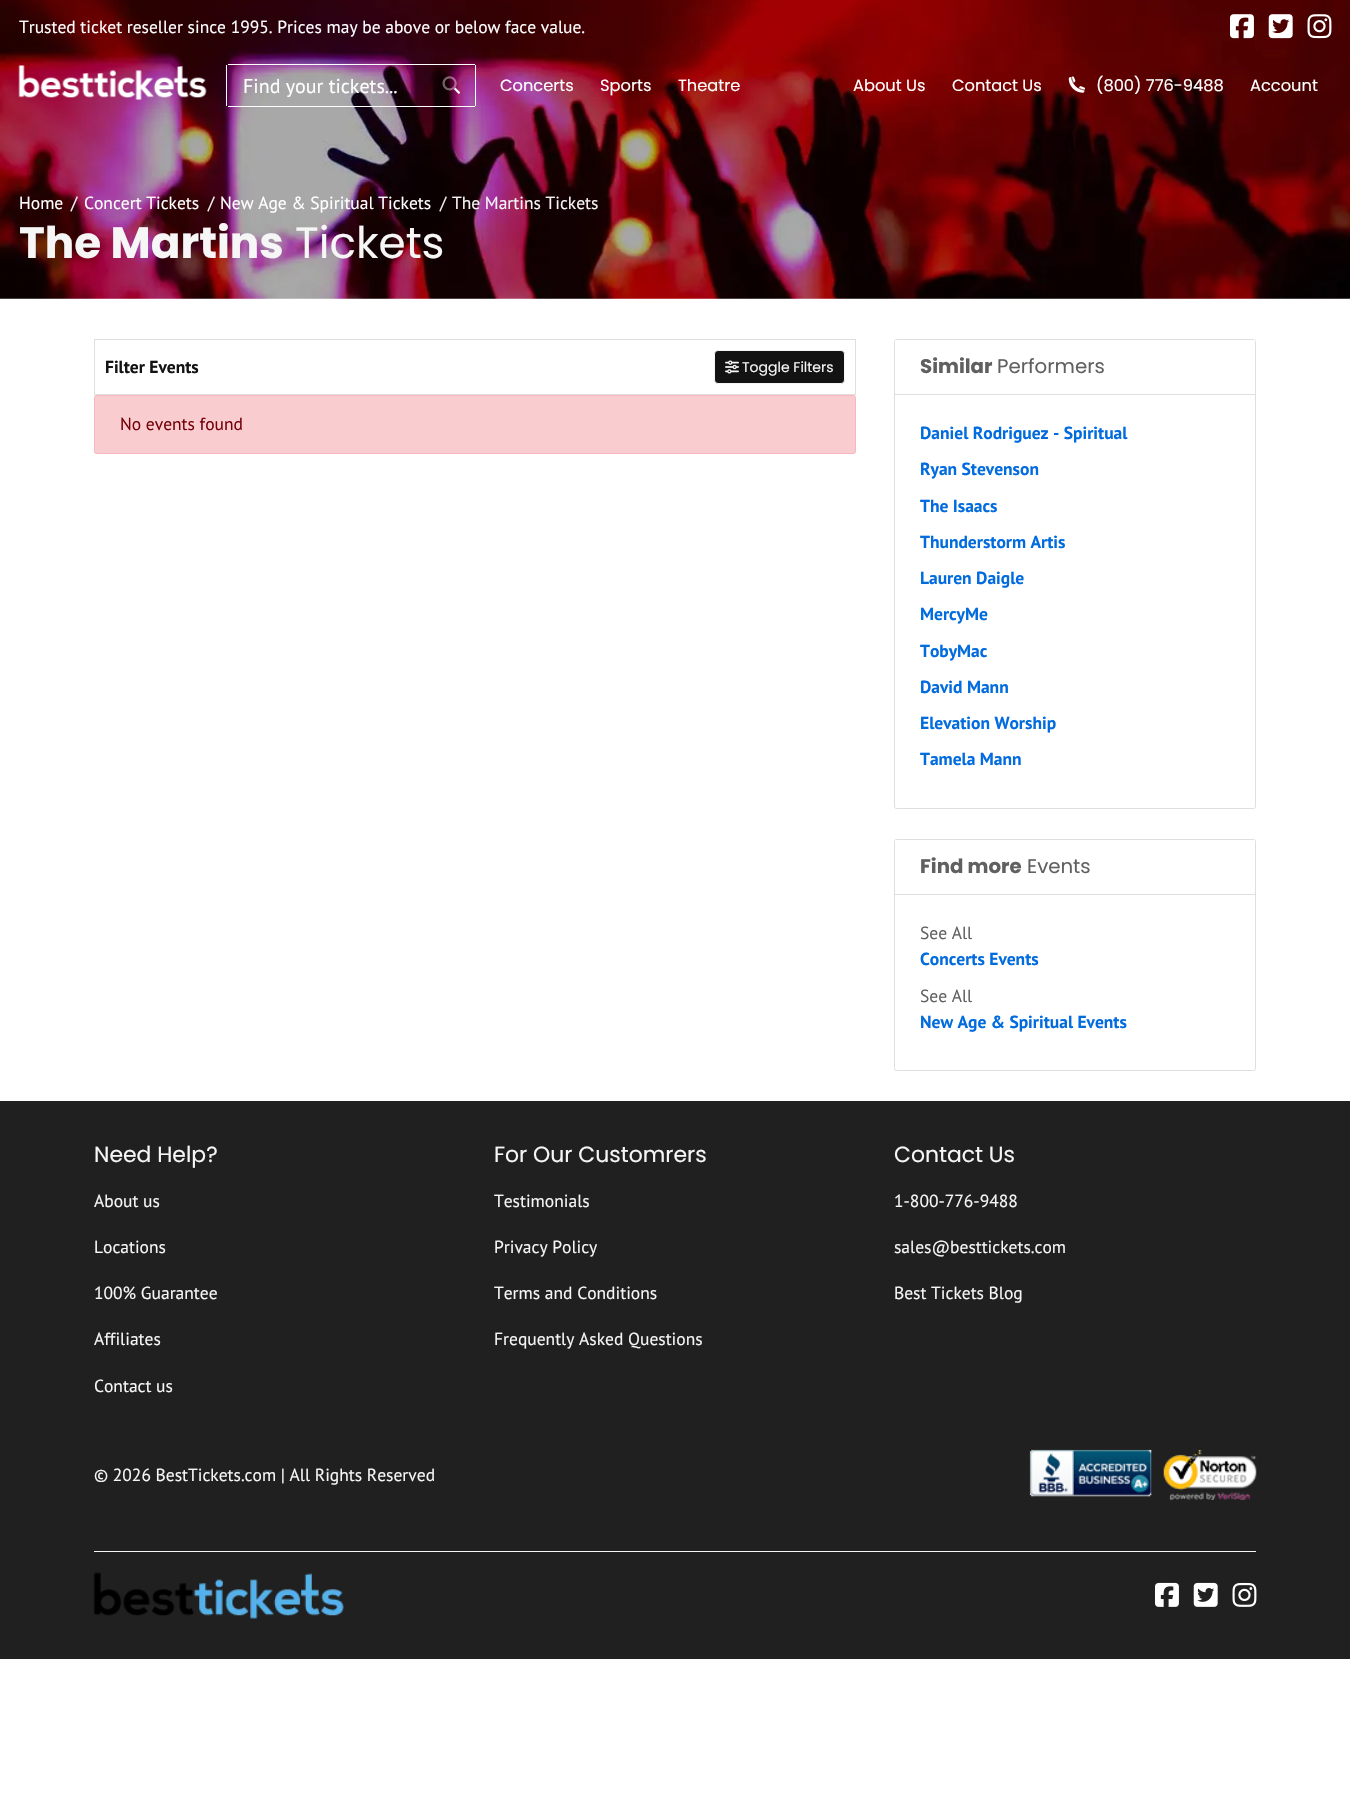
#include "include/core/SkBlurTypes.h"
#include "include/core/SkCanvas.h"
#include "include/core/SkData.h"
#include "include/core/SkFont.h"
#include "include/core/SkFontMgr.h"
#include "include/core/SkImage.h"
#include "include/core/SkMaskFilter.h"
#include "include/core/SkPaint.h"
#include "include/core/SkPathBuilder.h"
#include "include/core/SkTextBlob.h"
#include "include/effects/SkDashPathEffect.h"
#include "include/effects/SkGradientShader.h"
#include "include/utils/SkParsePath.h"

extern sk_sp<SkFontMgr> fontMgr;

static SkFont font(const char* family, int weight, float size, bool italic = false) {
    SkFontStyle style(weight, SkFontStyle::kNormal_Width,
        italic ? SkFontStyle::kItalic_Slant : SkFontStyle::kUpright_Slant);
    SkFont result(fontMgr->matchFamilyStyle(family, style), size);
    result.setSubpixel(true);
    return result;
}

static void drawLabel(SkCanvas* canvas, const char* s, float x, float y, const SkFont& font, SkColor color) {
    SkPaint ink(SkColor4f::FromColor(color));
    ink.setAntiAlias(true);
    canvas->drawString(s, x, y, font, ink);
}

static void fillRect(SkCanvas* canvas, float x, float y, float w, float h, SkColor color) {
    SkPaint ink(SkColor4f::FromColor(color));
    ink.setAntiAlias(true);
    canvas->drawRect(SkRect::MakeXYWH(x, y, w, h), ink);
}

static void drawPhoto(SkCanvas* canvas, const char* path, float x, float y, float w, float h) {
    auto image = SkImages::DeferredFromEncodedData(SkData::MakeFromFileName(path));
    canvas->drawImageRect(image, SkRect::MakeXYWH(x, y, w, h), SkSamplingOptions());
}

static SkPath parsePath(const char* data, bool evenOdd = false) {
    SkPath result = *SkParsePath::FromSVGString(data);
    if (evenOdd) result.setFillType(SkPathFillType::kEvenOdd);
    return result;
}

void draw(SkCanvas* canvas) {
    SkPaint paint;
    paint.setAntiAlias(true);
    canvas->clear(0xFFFFFFFF);
    drawPhoto(canvas, "assets/img7.png", 0, 0, 1350, 299);
    SkFont font1 = font("PT Sans", 400, 17.5f);
    drawLabel(canvas, "Trusted ticket reseller since 1995. Prices may be above or below face value.", 19, 33, font1, 0xFFFFFFFF);
    drawPhoto(canvas, "assets/img1.png", 1230, 14, 24, 25);
    drawPhoto(canvas, "assets/img2.png", 1268, 14, 25, 25);
    drawPhoto(canvas, "assets/img3.png", 1307, 14, 25, 25);
    drawPhoto(canvas, "assets/img4.png", 18, 65, 189, 35);
    fillRect(canvas, 228, 64, 247, 1, 0xFFFFFFFF);
    fillRect(canvas, 228, 106, 247, 1, 0xFFFFFFFF);
    fillRect(canvas, 226, 65, 1, 41, 0xFFFFFFFF);
    SkFont font2 = font("PT Sans", 400, 20);
    drawLabel(canvas, "Find your tickets...", 243, 93, font2, 0xFFFFFFFF);
    fillRect(canvas, 475, 65, 1, 41, 0xFFFFFFFF);
    drawPhoto(canvas, "assets/img5.png", 442, 76, 18, 18);
    SkFont font3 = font("Poppins", 400, 16.25f);
    drawLabel(canvas, "Concerts", 500, 91, font3, 0xFFFFFFFF);
    drawLabel(canvas, "Sports", 600, 91, font3, 0xFFFFFFFF);
    drawLabel(canvas, "Theatre", 678, 91, font3, 0xFFFFFFFF);
    drawLabel(canvas, "About Us", 853, 91, font3, 0xFFFFFFFF);
    drawLabel(canvas, "Contact Us", 952, 91, font3, 0xFFFFFFFF);
    drawPhoto(canvas, "assets/img6.png", 1068, 76, 17, 17);
    drawLabel(canvas, "(800) 776-9488", 1096, 91, font3, 0xFFFFFFFF);
    drawLabel(canvas, "Account", 1250, 91, font3, 0xFFFFFFFF);
    drawLabel(canvas, "Home", 19, 209, font1, 0xFFFFFFFF);
    drawLabel(canvas, "/", 71, 209, font1, 0xFFF6F6F6);
    drawLabel(canvas, "Concert Tickets", 84, 209, font1, 0xFFFFFFFF);
    drawLabel(canvas, "/", 208, 209, font1, 0xFFF6F6F6);
    drawLabel(canvas, "New Age & Spiritual Tickets", 220, 209, font1, 0xFFFFFFFF);
    drawLabel(canvas, "/", 440, 209, font1, 0xFFF6F6F6);
    drawLabel(canvas, "The Martins Tickets", 452, 209, font1, 0xFFF6F6F6);
    SkFont font4 = font("Poppins", 700, 43.75f);
    drawLabel(canvas, "The Martins", 19, 258, font4, 0xFFF6F6F6);
    SkFont font5 = font("Poppins", 400, 43.75f);
    drawLabel(canvas, "Tickets", 295, 258, font5, 0xFFF6F6F6);
    fillRect(canvas, 94, 339, 762, 1, 0xFFDFDFDF);
    paint.setColor(0xFFDFDFDF);
    canvas->drawPath(parsePath("M856 340V395L855 394V340Z"), paint);
    paint.setColor(0x1F000000);
    canvas->drawPath(parsePath("M856 395H94L95 394H855Z"), paint);
    canvas->drawPath(parsePath("M94 395V340H95V394Z"), paint);
    SkFont font6 = font("PT Sans", 700, 17.5f);
    drawLabel(canvas, "Filter Events", 105, 373, font6, 0xFF131313);
    paint.setColor(0xFF131313);
    canvas->drawRoundRect(SkRect::MakeXYWH(714.5f, 350.5f, 130, 33), 3.5f, 3.5f, paint);
    paint.setStroke(true);
    paint.setStrokeWidth(1);
    paint.setColor(0xFFF6F6F6);
    canvas->drawRoundRect(SkRect::MakeXYWH(714.5f, 350.5f, 130, 33), 3.5f, 3.5f, paint);
    drawPhoto(canvas, "assets/img8.png", 725, 360, 14, 14);
    SkFont font7 = font("Poppins", 400, 14);
    drawLabel(canvas, "Toggle Filters", 742, 372, font7, 0xFFF6F6F6);
    paint.setStroke(false);
    paint.setColor(0xFFF9CCCF);
    canvas->drawRoundRect(SkRect::MakeXYWH(94.5f, 395.5f, 761, 58), 2, 2, paint);
    paint.setStroke(true);
    paint.setColor(0xFFF6B8BC);
    canvas->drawRoundRect(SkRect::MakeXYWH(94.5f, 395.5f, 761, 58), 2, 2, paint);
    drawLabel(canvas, "No events found", 120, 430, font1, 0xFF740108);
    paint.setColor(0xFFDFDFDF);
    canvas->drawRoundRect(SkRect::MakeXYWH(894.5f, 339.5f, 361, 469), 2, 2, paint);
    paint.setStroke(false);
    paint.setColor(0xFFFFFFFF);
    canvas->drawPath(parsePath("M896 340H1254C1254.5 340 1255 340.5 1255 341V395H895V341C895 340.5 895.5 340 896 340Z"), paint);
    fillRect(canvas, 895, 394, 360, 1, 0xFFDFDFDF);
    SkFont font8 = font("Poppins", 700, 19.75f);
    drawLabel(canvas, "Similar", 920, 373, font8, 0xFF606060);
    SkFont font9 = font("Poppins", 400, 19.75f);
    drawLabel(canvas, "Performers", 997, 373, font9, 0xFF606060);
    drawLabel(canvas, "Daniel Rodriguez - Spiritual", 920, 439, font6, 0xFF026CDF);
    drawLabel(canvas, "Ryan Stevenson", 920, 475, font6, 0xFF026CDF);
    drawLabel(canvas, "The Isaacs", 920, 512, font6, 0xFF026CDF);
    drawLabel(canvas, "Thunderstorm Artis", 920, 548, font6, 0xFF026CDF);
    drawLabel(canvas, "Lauren Daigle", 920, 584, font6, 0xFF026CDF);
    drawLabel(canvas, "MercyMe", 920, 620, font6, 0xFF026CDF);
    drawLabel(canvas, "TobyMac", 920, 657, font6, 0xFF026CDF);
    drawLabel(canvas, "David Mann", 920, 693, font6, 0xFF026CDF);
    drawLabel(canvas, "Elevation Worship", 920, 729, font6, 0xFF026CDF);
    drawLabel(canvas, "Tamela Mann", 920, 765, font6, 0xFF026CDF);
    paint.setStroke(true);
    paint.setColor(0xFFDFDFDF);
    canvas->drawRoundRect(SkRect::MakeXYWH(894.5f, 839.5f, 361, 231), 2, 2, paint);
    paint.setStroke(false);
    paint.setColor(0xFFFFFFFF);
    canvas->drawPath(parsePath("M896 840H1254C1254.5 840 1255 840.5 1255 841V895H895V841C895 840.5 895.5 840 896 840Z"), paint);
    fillRect(canvas, 895, 894, 360, 1, 0xFFDFDFDF);
    drawLabel(canvas, "Find more", 920, 873, font8, 0xFF606060);
    drawLabel(canvas, "Events", 1027, 873, font9, 0xFF606060);
    drawLabel(canvas, "See All", 920, 939, font1, 0xFF606060);
    drawLabel(canvas, "Concerts Events", 920, 965, font6, 0xFF026CDF);
    drawLabel(canvas, "See All", 920, 1002, font1, 0xFF606060);
    drawLabel(canvas, "New Age & Spiritual Events", 920, 1028, font6, 0xFF026CDF);
    fillRect(canvas, 0, 1101, 1350, 558, 0xFF202020);
    SkFont font10 = font("Poppins", 400, 21.9f);
    drawLabel(canvas, "Need Help?", 94, 1162, font10, 0xFFF6F6F6);
    drawLabel(canvas, "About us", 94, 1207, font1, 0xFFF6F6F6);
    drawLabel(canvas, "Locations", 94, 1253, font1, 0xFFF6F6F6);
    drawLabel(canvas, "100% Guarantee", 94, 1299, font1, 0xFFF6F6F6);
    drawLabel(canvas, "Affiliates", 94, 1345, font1, 0xFFF6F6F6);
    drawLabel(canvas, "Contact us", 94, 1392, font1, 0xFFF6F6F6);
    drawLabel(canvas, "For Our Customrers", 494, 1162, font10, 0xFFF6F6F6);
    drawLabel(canvas, "Testimonials", 494, 1207, font1, 0xFFF6F6F6);
    drawLabel(canvas, "Privacy Policy", 494, 1253, font1, 0xFFF6F6F6);
    drawLabel(canvas, "Terms and Conditions", 494, 1299, font1, 0xFFF6F6F6);
    drawLabel(canvas, "Frequently Asked Questions", 494, 1345, font1, 0xFFF6F6F6);
    drawLabel(canvas, "Contact Us", 894, 1162, font10, 0xFFF6F6F6);
    drawLabel(canvas, "1-800-776-9488", 894, 1207, font1, 0xFFF6F6F6);
    drawLabel(canvas, "sales@besttickets.com", 894, 1253, font1, 0xFFF6F6F6);
    drawLabel(canvas, "Best Tickets Blog", 894, 1299, font1, 0xFFF6F6F6);
    fillRect(canvas, 94, 1551, 1162, 1, 0xFFF6F6F6);
    drawLabel(canvas, "© 2026 BestTickets.com | All Rights Reserved", 94, 1481, font1, 0xFFF6F6F6);
    drawPhoto(canvas, "assets/img9.png", 1029, 1449, 123, 48);
    drawPhoto(canvas, "assets/img10.png", 1163, 1450, 94, 50);
    drawPhoto(canvas, "assets/img11.png", 93, 1572, 251, 47);
    drawPhoto(canvas, "assets/img12.png", 1155, 1582, 24, 25);
    drawPhoto(canvas, "assets/img13.png", 1193, 1582, 25, 25);
    drawPhoto(canvas, "assets/img14.png", 1232, 1582, 25, 25);
}
